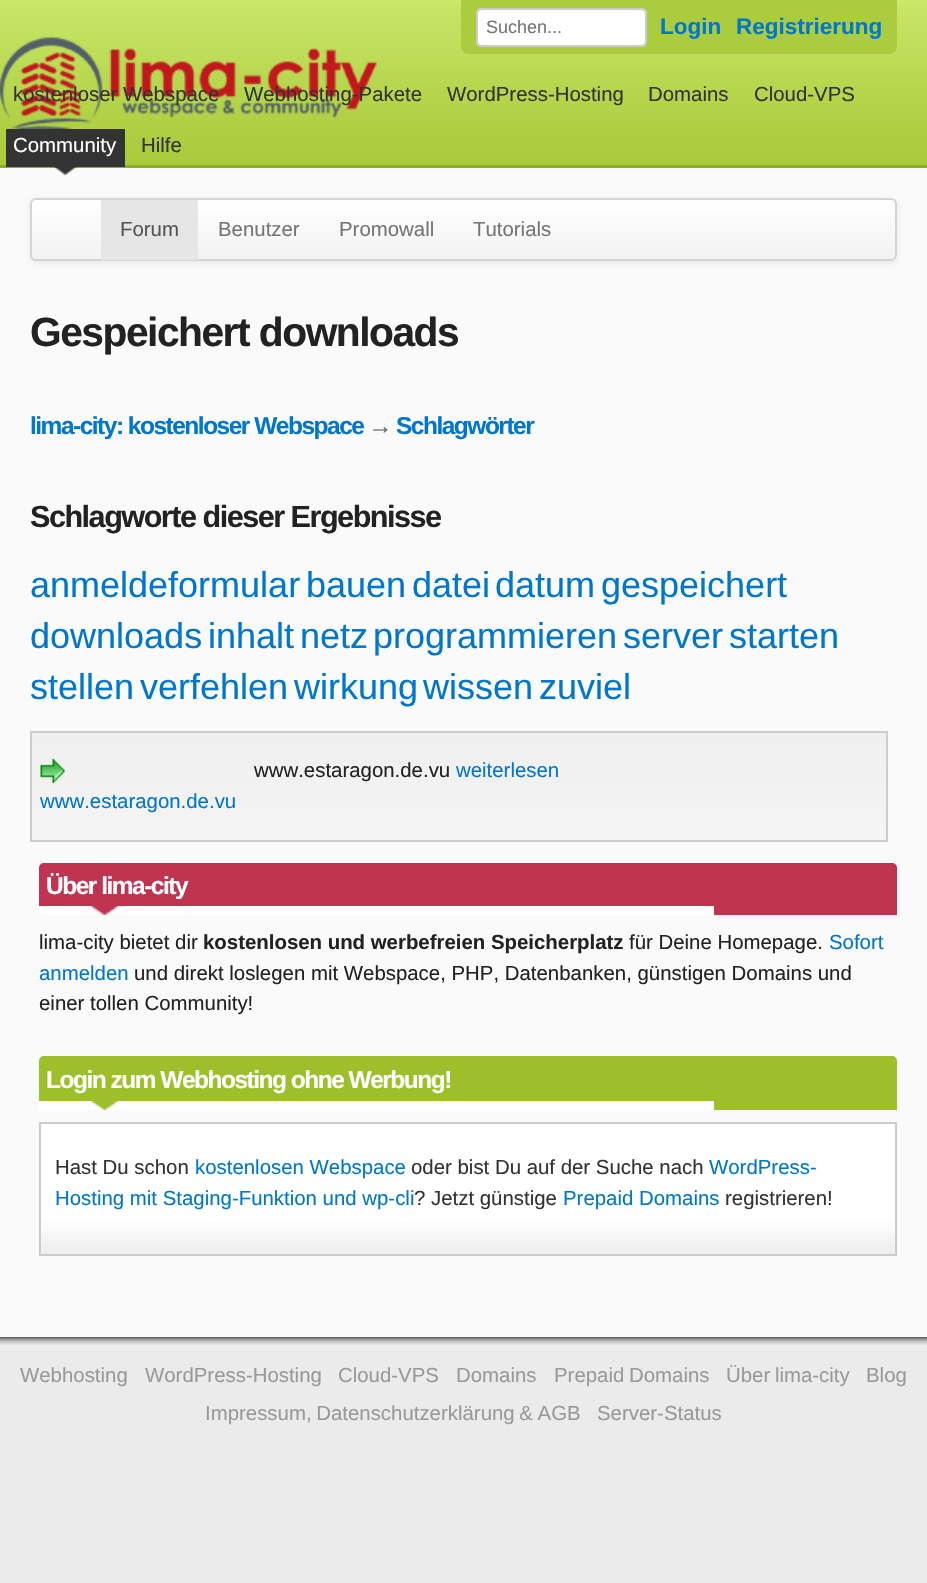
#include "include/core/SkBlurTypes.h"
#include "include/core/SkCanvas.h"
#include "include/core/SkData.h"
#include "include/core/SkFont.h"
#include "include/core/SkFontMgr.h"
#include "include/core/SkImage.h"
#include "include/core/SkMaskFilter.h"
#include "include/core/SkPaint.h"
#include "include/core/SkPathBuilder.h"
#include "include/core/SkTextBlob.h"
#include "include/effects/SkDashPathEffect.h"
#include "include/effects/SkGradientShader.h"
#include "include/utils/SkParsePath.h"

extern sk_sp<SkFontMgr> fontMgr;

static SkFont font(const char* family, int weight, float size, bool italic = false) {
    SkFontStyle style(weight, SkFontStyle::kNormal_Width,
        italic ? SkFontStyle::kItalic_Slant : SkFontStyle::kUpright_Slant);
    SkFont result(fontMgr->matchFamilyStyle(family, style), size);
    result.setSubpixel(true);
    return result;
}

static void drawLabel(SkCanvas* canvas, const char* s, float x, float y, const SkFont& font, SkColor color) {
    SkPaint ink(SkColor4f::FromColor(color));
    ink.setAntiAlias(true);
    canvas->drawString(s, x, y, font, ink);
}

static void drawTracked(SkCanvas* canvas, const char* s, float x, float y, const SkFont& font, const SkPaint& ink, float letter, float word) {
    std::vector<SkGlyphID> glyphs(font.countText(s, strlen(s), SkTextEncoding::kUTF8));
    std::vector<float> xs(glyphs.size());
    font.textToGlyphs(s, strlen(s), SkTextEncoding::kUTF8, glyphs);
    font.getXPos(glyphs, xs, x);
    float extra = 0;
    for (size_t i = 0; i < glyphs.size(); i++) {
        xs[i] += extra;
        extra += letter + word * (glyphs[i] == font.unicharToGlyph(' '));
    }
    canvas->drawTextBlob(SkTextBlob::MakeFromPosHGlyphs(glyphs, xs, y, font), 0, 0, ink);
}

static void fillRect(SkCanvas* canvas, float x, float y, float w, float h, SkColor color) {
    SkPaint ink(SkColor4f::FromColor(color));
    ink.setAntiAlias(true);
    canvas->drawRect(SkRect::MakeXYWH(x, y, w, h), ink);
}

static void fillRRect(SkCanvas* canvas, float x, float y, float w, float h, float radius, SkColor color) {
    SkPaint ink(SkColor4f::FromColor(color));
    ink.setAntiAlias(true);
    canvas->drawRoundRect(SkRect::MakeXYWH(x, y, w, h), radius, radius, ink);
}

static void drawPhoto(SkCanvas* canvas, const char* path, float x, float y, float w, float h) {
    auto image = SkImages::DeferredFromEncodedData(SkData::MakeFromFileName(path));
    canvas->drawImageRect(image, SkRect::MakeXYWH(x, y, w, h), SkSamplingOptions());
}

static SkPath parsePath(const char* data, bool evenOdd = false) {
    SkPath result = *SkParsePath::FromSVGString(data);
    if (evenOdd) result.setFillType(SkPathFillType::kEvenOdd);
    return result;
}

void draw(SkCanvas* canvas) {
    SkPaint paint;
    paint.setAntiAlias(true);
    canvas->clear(0xFFEBEBEB);
    fillRect(canvas, 0, 0, 927, 4, 0xFFCBE86B);
    drawPhoto(canvas, "assets/img1.png", 0, 4, 927, 161);
    fillRect(canvas, 0, 165, 927, 3, 0xFF8DAD25);
    paint.setColor(0xFFABCC3E);
    canvas->drawPath(parsePath("M461 0H897V46C897 50.5 893.5 54 889 54H469C464.5 54 461 50.5 461 46Z"), paint);
    fillRRect(canvas, 476, 8, 171, 39, 6, 0xFFFFFFFF);
    paint.setColor(0xFFECECEC);
    canvas->drawPath(parsePath("M482 10H640C643 10 645 13 645 15V14C645 11 643 9 640 9H482C479 9 477 11 477 14V15C477 13 479 10 482 10Z"), paint);
    paint.setStroke(true);
    paint.setStrokeWidth(2);
    paint.setColor(0xFFCCCCCC);
    canvas->drawRoundRect(SkRect::MakeXYWH(477, 9, 169, 37), 5, 5, paint);
    SkFont font1 = font("Liberation Sans", 400, 18);
    drawLabel(canvas, "Suchen...", 486, 33, font1, 0xFF757575);
    SkFont font2 = font("Liberation Sans", 700, 22.5f);
    drawLabel(canvas, "Login", 660, 34, font2, 0xFF0077CC);
    drawLabel(canvas, "Registrierung", 736, 34, font2, 0xFF0077CC);
    drawPhoto(canvas, "assets/img2.png", 0, 37, 377, 92);
    SkFont font3 = font("Liberation Sans", 400, 20.4f);
    drawLabel(canvas, "kostenloser Webspace", 13, 101, font3, 0xFF333333);
    drawLabel(canvas, "Webhosting-Pakete", 244, 101, font3, 0xFF333333);
    drawLabel(canvas, "WordPress-Hosting", 447, 101, font3, 0xFF333333);
    drawLabel(canvas, "Domains", 648, 101, font3, 0xFF333333);
    drawLabel(canvas, "Cloud-VPS", 754, 101, font3, 0xFF333333);
    fillRect(canvas, 0, 168, 927, 1169, 0xFFFAFAFA);
    drawPhoto(canvas, "assets/img3.png", 54, 167, 23, 9);
    fillRect(canvas, 6, 129, 119, 38, 0xFF333333);
    drawLabel(canvas, "Community", 13, 152, font3, 0xFFFFFFFF);
    drawLabel(canvas, "Hilfe", 141, 152, font3, 0xFF333333);
    paint.setStroke(false);
    paint.setColor(0x12000000);
    paint.setMaskFilter(SkMaskFilter::MakeBlur(kNormal_SkBlurStyle, 3));
    canvas->drawRoundRect(SkRect::MakeXYWH(30, 200, 867, 63), 6, 6, paint);
    paint.setMaskFilter(nullptr);
    canvas->save();
    canvas->clipPath(parsePath("M36 198H891C894.5 198 897 200.5 897 204V255C897 258.5 894.5 261 891 261H36C32.5 261 30 258.5 30 255V204C30 200.5 32.5 198 36 198Z"), true);
    {
        const SkColor colors[] = {0xFFFFFFFF, 0xFFF2F2F2};
        const float stops[] = {0, 1};
        const SkPoint ends[] = {{464, 199}, {464, 260}};
        paint.setShader(SkGradientShader::MakeLinear(ends, colors, stops, 2, SkTileMode::kClamp));
        paint.setAlpha(255);
    }
    canvas->drawRect(SkRect::MakeXYWH(30, 200, 867, 60), paint);
    canvas->restore();
    paint.setStroke(true);
    paint.setShader(nullptr);
    paint.setColor(0xFFD4D4D4);
    canvas->drawRoundRect(SkRect::MakeXYWH(31, 199, 865, 61), 5, 5, paint);
    fillRect(canvas, 101, 200, 97, 60, 0xFFE6E6E6);
    drawLabel(canvas, "Forum", 120, 236, font3, 0xFF555555);
    drawLabel(canvas, "Benutzer", 218, 236, font3, 0xFF757575);
    drawLabel(canvas, "Promowall", 339, 236, font3, 0xFF757575);
    drawLabel(canvas, "Tutorials", 473, 236, font3, 0xFF757575);
    SkFont font4 = font("Liberation Sans", 700, 40.75f);
    paint.setStroke(false);
    paint.setColor(0xFF222222);
    drawTracked(canvas, "Gespeichert downloads", 30, 346, font4, paint, -1.5f, 0);
    SkFont font5 = font("Liberation Sans", 700, 24.5f);
    paint.setColor(0xFF0077CC);
    drawTracked(canvas, "lima-city: kostenloser Webspace", 30, 434, font5, paint, -1.5f, 0);
    paint.setColor(0xFF666666);
    drawTracked(canvas, "→", 368, 434, font5, paint, -1.5f, 0);
    paint.setColor(0xFF0077CC);
    drawTracked(canvas, "Schlagwörter", 396, 434, font5, paint, -1.5f, 0);
    SkFont font6 = font("Liberation Sans", 700, 30.6f);
    paint.setColor(0xFF222222);
    drawTracked(canvas, "Schlagworte dieser Ergebnisse", 30, 527, font6, paint, -1.5f, 0);
    SkFont font7 = font("Liberation Sans", 400, 36);
    drawLabel(canvas, "anmeldeformular", 30, 597, font7, 0xFF0077CC);
    drawLabel(canvas, "bauen", 306, 597, font7, 0xFF0077CC);
    drawLabel(canvas, "datei", 412, 597, font7, 0xFF0077CC);
    drawLabel(canvas, "datum", 495, 597, font7, 0xFF0077CC);
    drawLabel(canvas, "gespeichert", 601, 597, font7, 0xFF0077CC);
    drawLabel(canvas, "downloads", 30, 648, font7, 0xFF0077CC);
    drawLabel(canvas, "inhalt", 208, 648, font7, 0xFF0077CC);
    drawLabel(canvas, "netz", 300, 648, font7, 0xFF0077CC);
    drawLabel(canvas, "programmieren", 373, 648, font7, 0xFF0077CC);
    drawLabel(canvas, "server", 623, 648, font7, 0xFF0077CC);
    drawLabel(canvas, "starten", 729, 648, font7, 0xFF0077CC);
    drawLabel(canvas, "stellen", 30, 699, font7, 0xFF0077CC);
    drawLabel(canvas, "verfehlen", 140, 699, font7, 0xFF0077CC);
    drawLabel(canvas, "wirkung", 294, 699, font7, 0xFF0077CC);
    drawLabel(canvas, "wissen", 423, 699, font7, 0xFF0077CC);
    drawLabel(canvas, "zuviel", 539, 699, font7, 0xFF0077CC);
    {
        const SkColor colors[] = {0xFFEFEFEF, 0xFFFAFAFA};
        const float stops[] = {0, 1};
        const SkPoint ends[] = {{459, 732}, {459, 957}};
        paint.setShader(SkGradientShader::MakeLinear(ends, colors, stops, 2, SkTileMode::kClamp));
        paint.setAlpha(255);
    }
    canvas->drawRect(SkRect::MakeXYWH(32, 733, 854, 107), paint);
    paint.setStroke(true);
    paint.setShader(nullptr);
    paint.setColor(0xFFCCCCCC);
    canvas->drawRect(SkRect::MakeXYWH(31, 732, 856, 109), paint);
    drawLabel(canvas, "www.estaragon.de.vu", 254, 777, font3, 0xFF222222);
    drawLabel(canvas, "weiterlesen", 456, 777, font3, 0xFF0077CC);
    drawPhoto(canvas, "assets/img4.png", 40, 759, 25, 24);
    drawLabel(canvas, "www.estaragon.de.vu", 40, 808, font3, 0xFF0077CC);
    paint.setStroke(false);
    paint.setColor(0xFFC03452);
    canvas->drawPath(parsePath("M44 863H892C895 863 897 865 897 868V915H39V868C39 865 41 863 44 863Z"), paint);
    drawPhoto(canvas, "assets/img5.png", 39, 906, 675, 9);
    paint.setColor(0xFFFFFFFF);
    drawTracked(canvas, "Über lima-city", 46, 894, font5, paint, -1.5f, 0);
    drawLabel(canvas, "lima-city bietet dir", 39, 949, font3, 0xFF222222);
    SkFont font8 = font("Liberation Sans", 700, 20.4f);
    drawLabel(canvas, "kostenlosen und werbefreien Speicherplatz", 203, 949, font8, 0xFF222222);
    drawLabel(canvas, "für Deine Homepage.", 629, 949, font3, 0xFF222222);
    drawLabel(canvas, "Sofort", 829, 949, font3, 0xFF0077CC);
    drawLabel(canvas, "anmelden", 39, 980, font3, 0xFF0077CC);
    drawLabel(canvas, "und direkt loslegen mit Webspace, PHP, Datenbanken, günstigen Domains und", 134, 980, font3, 0xFF222222);
    drawLabel(canvas, "einer tollen Community!", 39, 1010, font3, 0xFF222222);
    paint.setColor(0xFF9DC02A);
    canvas->drawPath(parsePath("M44 1056H892C895 1056 897 1058 897 1061V1110H39V1061C39 1058 41 1056 44 1056Z"), paint);
    drawPhoto(canvas, "assets/img6.png", 39, 1101, 675, 9);
    paint.setColor(0xFFFFFFFF);
    drawTracked(canvas, "Login zum Webhosting ohne Werbung!", 46, 1088, font5, paint, -1.5f, 0);
    drawPhoto(canvas, "assets/img7.png", 41, 1124, 854, 130);
    paint.setStroke(true);
    paint.setColor(0xFFCCCCCC);
    canvas->drawRect(SkRect::MakeXYWH(40, 1123, 856, 132), paint);
    drawLabel(canvas, "Hast Du schon", 55, 1174, font3, 0xFF333333);
    drawLabel(canvas, "kostenlosen Webspace", 195, 1174, font3, 0xFF0077CC);
    drawLabel(canvas, "oder bist Du auf der Suche nach", 411, 1174, font3, 0xFF333333);
    drawLabel(canvas, "WordPress-", 709, 1174, font3, 0xFF0077CC);
    drawLabel(canvas, "Hosting mit Staging-Funktion und wp-cli", 55, 1205, font3, 0xFF0077CC);
    drawLabel(canvas, "? Jetzt günstige", 414, 1205, font3, 0xFF333333);
    drawLabel(canvas, "Prepaid Domains", 563, 1205, font3, 0xFF0077CC);
    drawLabel(canvas, "registrieren!", 725, 1205, font3, 0xFF333333);
    drawPhoto(canvas, "assets/img8.png", 0, 1337, 927, 8);
    drawLabel(canvas, "Webhosting", 20, 1382, font3, 0xFF999999);
    drawLabel(canvas, "WordPress-Hosting", 145, 1382, font3, 0xFF999999);
    drawLabel(canvas, "Cloud-VPS", 338, 1382, font3, 0xFF999999);
    drawLabel(canvas, "Domains", 456, 1382, font3, 0xFF999999);
    paint.setStroke(false);
    paint.setColor(0xFF999999);
    drawTracked(canvas, "Prepaid Domains", 554, 1382, font3, paint, 0, -1);
    drawTracked(canvas, "Über lima-city", 726, 1382, font3, paint, 0, -1);
    drawLabel(canvas, "Blog", 866, 1382, font3, 0xFF999999);
    drawTracked(canvas, "Impressum, Datenschutzerklärung & AGB", 205, 1420, font3, paint, 0, -1);
    drawLabel(canvas, "Server-Status", 597, 1420, font3, 0xFF999999);
}
